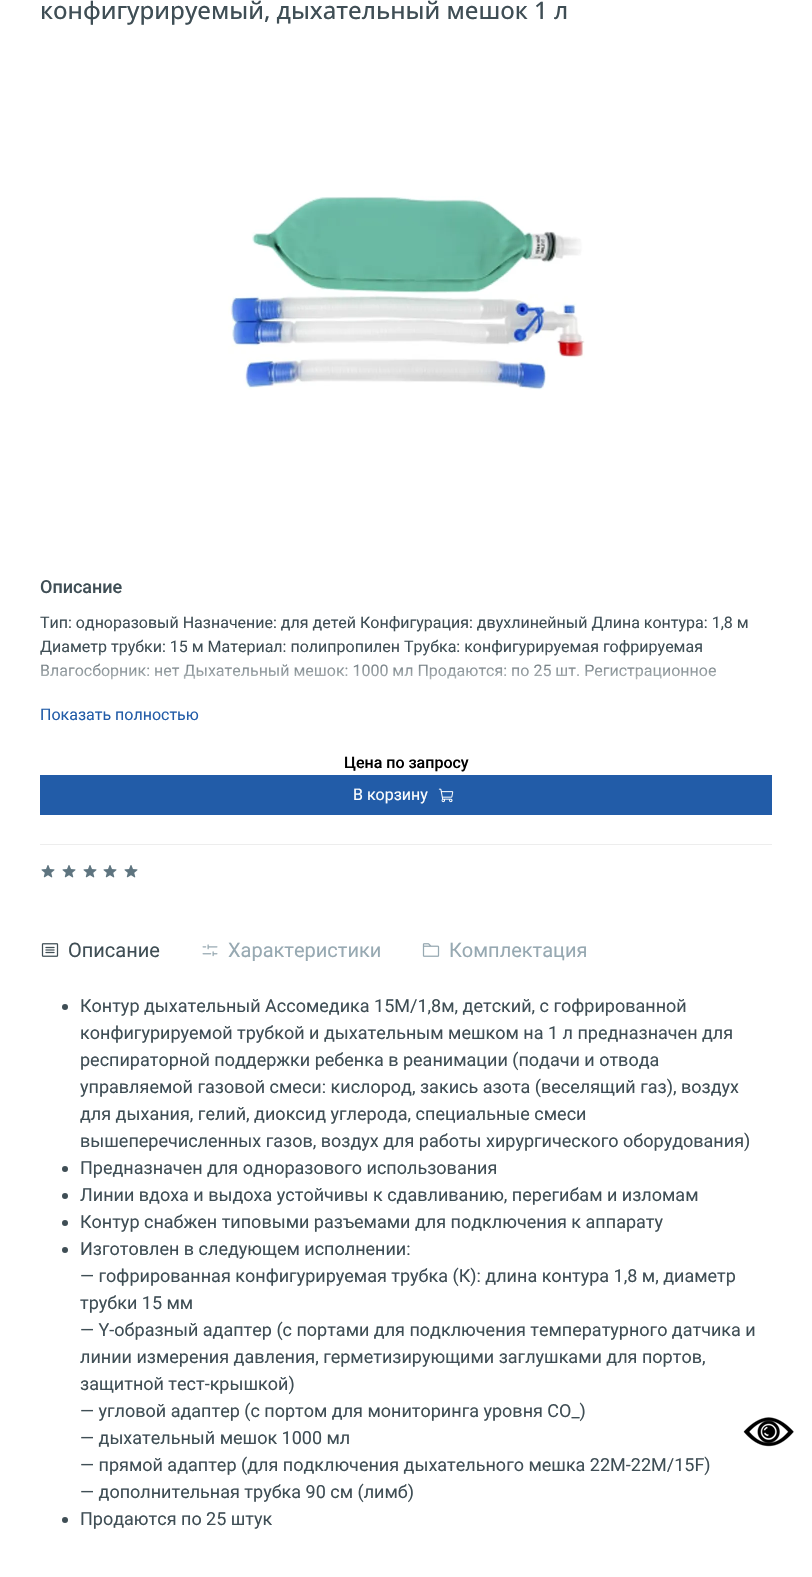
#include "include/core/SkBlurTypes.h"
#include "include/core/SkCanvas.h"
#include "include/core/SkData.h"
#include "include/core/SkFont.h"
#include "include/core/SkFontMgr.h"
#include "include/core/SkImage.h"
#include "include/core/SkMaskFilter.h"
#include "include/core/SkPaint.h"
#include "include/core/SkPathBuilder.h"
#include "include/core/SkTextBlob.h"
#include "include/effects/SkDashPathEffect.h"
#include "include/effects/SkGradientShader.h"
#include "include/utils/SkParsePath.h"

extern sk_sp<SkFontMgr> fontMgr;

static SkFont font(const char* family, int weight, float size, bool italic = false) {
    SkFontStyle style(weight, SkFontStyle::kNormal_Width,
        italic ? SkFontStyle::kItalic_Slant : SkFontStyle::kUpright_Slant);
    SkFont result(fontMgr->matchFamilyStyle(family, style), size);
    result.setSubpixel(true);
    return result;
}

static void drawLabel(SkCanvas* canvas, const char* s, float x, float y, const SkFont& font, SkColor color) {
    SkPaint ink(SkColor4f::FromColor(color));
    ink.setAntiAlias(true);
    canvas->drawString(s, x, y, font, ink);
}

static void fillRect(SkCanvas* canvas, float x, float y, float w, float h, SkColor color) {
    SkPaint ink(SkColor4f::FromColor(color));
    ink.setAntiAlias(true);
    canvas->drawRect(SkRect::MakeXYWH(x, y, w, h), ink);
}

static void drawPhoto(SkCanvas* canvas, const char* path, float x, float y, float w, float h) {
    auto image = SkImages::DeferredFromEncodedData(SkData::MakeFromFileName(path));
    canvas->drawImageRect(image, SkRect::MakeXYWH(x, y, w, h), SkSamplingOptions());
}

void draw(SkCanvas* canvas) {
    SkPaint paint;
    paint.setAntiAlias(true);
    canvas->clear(0xFFFFFFFF);
    SkFont font1 = font("Open Sans", 500, 24);
    drawLabel(canvas, "конфигурируемый, дыхательный мешок 1 л", 40, 19, font1, 0xFF3F4E55);
    drawPhoto(canvas, "assets/img1.png", 228, 196, 357, 194);
    SkFont font2 = font("Roboto", 500, 18);
    drawLabel(canvas, "Описание", 40, 593, font2, 0xFF3F4E55);
    SkFont font3 = font("Roboto", 400, 16);
    drawLabel(canvas, "Тип: одноразовый Назначение: для детей Конфигурация: двухлинейный Длина контура: 1,8 м", 40, 628, font3, 0xFF3F4E55);
    drawLabel(canvas, "Диаметр трубки: 15 м Материал: полипропилен Трубка: конфигурируемая гофрируемая", 40, 652, font3, 0xFF3F4E55);
    drawLabel(canvas, "Влагосборник: нет Дыхательный мешок: 1000 мл Продаются: по 25 шт. Регистрационное", 40, 676, font3, 0xFF3F4E55);
    {
        const SkColor colors[] = {0xFFFFFFFF, 0x00FFFFFF};
        const float stops[] = {0, 1};
        const SkPoint ends[] = {{406, 699}, {406, 651}};
        paint.setShader(SkGradientShader::MakeLinear(ends, colors, stops, 2, SkTileMode::kClamp));
        paint.setAlpha(255);
    }
    canvas->drawRect(SkRect::MakeXYWH(40, 652, 676, 28), paint);
    drawLabel(canvas, "Показать полностью", 40, 720, font3, 0xFF225CA8);
    SkFont font4 = font("Roboto", 500, 16);
    drawLabel(canvas, "Цена по запросу", 344, 768, font4, 0xFF000000);
    fillRect(canvas, 40, 775, 732, 40, 0xFF225CA8);
    drawLabel(canvas, "В корзину", 353, 800, font3, 0xFFFFFFFF);
    drawPhoto(canvas, "assets/img2.png", 438, 788, 16, 15);
    fillRect(canvas, 40, 844, 732, 1, 0xFFEDEDED);
    drawPhoto(canvas, "assets/img3.png", 41, 865, 14, 13);
    drawPhoto(canvas, "assets/img3.png", 62, 865, 14, 13);
    drawPhoto(canvas, "assets/img3.png", 83, 865, 14, 13);
    drawPhoto(canvas, "assets/img3.png", 103, 865, 14, 13);
    drawPhoto(canvas, "assets/img3.png", 124, 865, 14, 13);
    drawPhoto(canvas, "assets/img4.png", 41, 943, 18, 14);
    SkFont font5 = font("Roboto", 400, 20);
    drawLabel(canvas, "Описание", 68, 957, font5, 0xFF3F4E55);
    drawPhoto(canvas, "assets/img5.png", 202, 944, 16, 13);
    drawLabel(canvas, "Характеристики", 228, 957, font5, 0xFF97A9B2);
    drawPhoto(canvas, "assets/img6.png", 422, 943, 18, 14);
    drawLabel(canvas, "Комплектация", 449, 957, font5, 0xFF97A9B2);
    paint.setShader(nullptr);
    paint.setColor(0xFF3F4E55);
    canvas->drawCircle(65, 1007, 3, paint);
    SkFont font6 = font("Roboto", 400, 18);
    drawLabel(canvas, "Контур дыхательный Ассомедика 15М/1,8м, детский, с гофрированной", 80, 1012, font6, 0xFF3F4E55);
    drawLabel(canvas, "конфигурируемой трубкой и дыхательным мешком на 1 л предназначен для", 80, 1039, font6, 0xFF3F4E55);
    drawLabel(canvas, "респираторной поддержки ребенка в реанимации (подачи и отвода", 80, 1066, font6, 0xFF3F4E55);
    drawLabel(canvas, "управляемой газовой смеси: кислород, закись азота (веселящий газ), воздух", 80, 1093, font6, 0xFF3F4E55);
    drawLabel(canvas, "для дыхания, гелий, диоксид углерода, специальные смеси", 80, 1120, font6, 0xFF3F4E55);
    drawLabel(canvas, "вышеперечисленных газов, воздух для работы хирургического оборудования)", 80, 1147, font6, 0xFF3F4E55);
    canvas->drawCircle(65, 1169, 3, paint);
    drawLabel(canvas, "Предназначен для одноразового использования", 80, 1174, font6, 0xFF3F4E55);
    canvas->drawCircle(65, 1196, 3, paint);
    drawLabel(canvas, "Линии вдоха и выдоха устойчивы к сдавливанию, перегибам и изломам", 80, 1201, font6, 0xFF3F4E55);
    canvas->drawCircle(65, 1223, 3, paint);
    drawLabel(canvas, "Контур снабжен типовыми разъемами для подключения к аппарату", 80, 1228, font6, 0xFF3F4E55);
    canvas->drawCircle(65, 1250, 3, paint);
    drawLabel(canvas, "Изготовлен в следующем исполнении:", 80, 1255, font6, 0xFF3F4E55);
    drawLabel(canvas, "— гофрированная конфигурируемая трубка (К): длина контура 1,8 м, диаметр", 80, 1282, font6, 0xFF3F4E55);
    drawLabel(canvas, "трубки 15 мм", 80, 1309, font6, 0xFF3F4E55);
    drawLabel(canvas, "— Y-образный адаптер (с портами для подключения температурного датчика и", 80, 1336, font6, 0xFF3F4E55);
    drawLabel(canvas, "линии измерения давления, герметизирующими заглушками для портов,", 80, 1363, font6, 0xFF3F4E55);
    drawLabel(canvas, "защитной тест-крышкой)", 80, 1390, font6, 0xFF3F4E55);
    drawLabel(canvas, "— угловой адаптер (с портом для мониторинга уровня СO_)", 80, 1417, font6, 0xFF3F4E55);
    drawLabel(canvas, "— дыхательный мешок 1000 мл", 80, 1444, font6, 0xFF3F4E55);
    drawLabel(canvas, "— прямой адаптер (для подключения дыхательного мешка 22М-22М/15F)", 80, 1471, font6, 0xFF3F4E55);
    drawLabel(canvas, "— дополнительная трубка 90 см (лимб)", 80, 1498, font6, 0xFF3F4E55);
    canvas->drawCircle(65, 1520, 3, paint);
    drawLabel(canvas, "Продаются по 25 штук", 80, 1525, font6, 0xFF3F4E55);
    drawPhoto(canvas, "assets/img7.png", 743, 1417, 51, 30);
}
